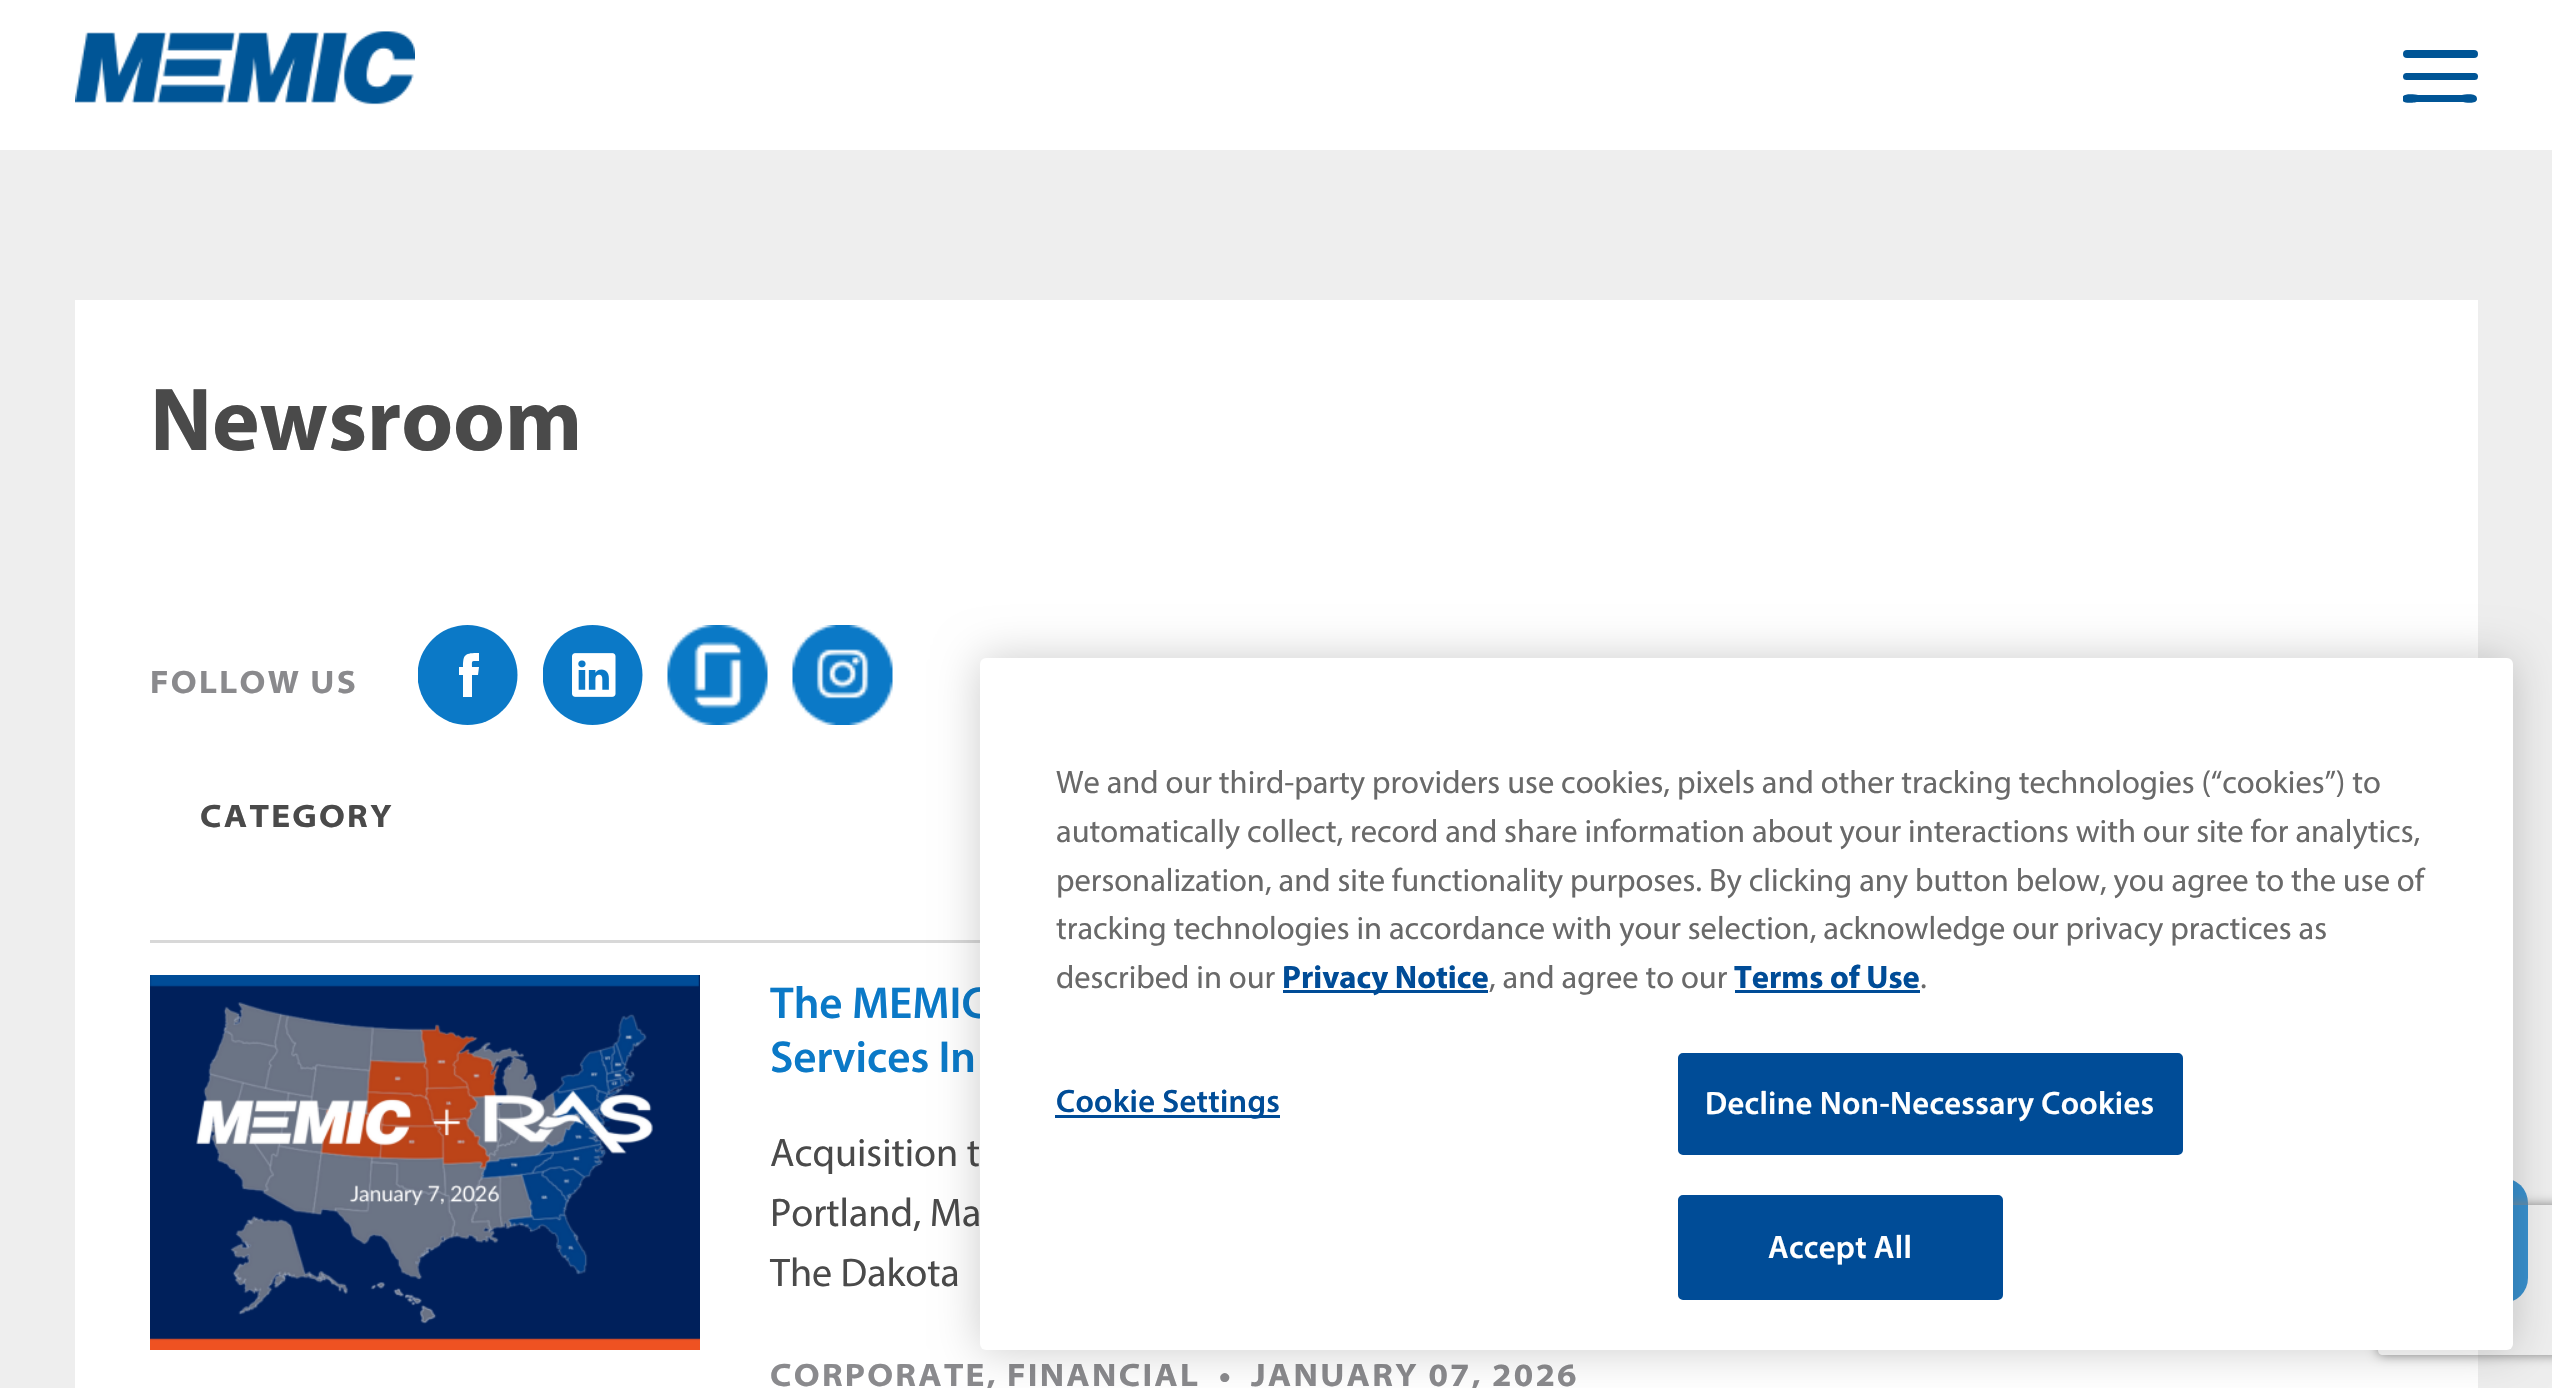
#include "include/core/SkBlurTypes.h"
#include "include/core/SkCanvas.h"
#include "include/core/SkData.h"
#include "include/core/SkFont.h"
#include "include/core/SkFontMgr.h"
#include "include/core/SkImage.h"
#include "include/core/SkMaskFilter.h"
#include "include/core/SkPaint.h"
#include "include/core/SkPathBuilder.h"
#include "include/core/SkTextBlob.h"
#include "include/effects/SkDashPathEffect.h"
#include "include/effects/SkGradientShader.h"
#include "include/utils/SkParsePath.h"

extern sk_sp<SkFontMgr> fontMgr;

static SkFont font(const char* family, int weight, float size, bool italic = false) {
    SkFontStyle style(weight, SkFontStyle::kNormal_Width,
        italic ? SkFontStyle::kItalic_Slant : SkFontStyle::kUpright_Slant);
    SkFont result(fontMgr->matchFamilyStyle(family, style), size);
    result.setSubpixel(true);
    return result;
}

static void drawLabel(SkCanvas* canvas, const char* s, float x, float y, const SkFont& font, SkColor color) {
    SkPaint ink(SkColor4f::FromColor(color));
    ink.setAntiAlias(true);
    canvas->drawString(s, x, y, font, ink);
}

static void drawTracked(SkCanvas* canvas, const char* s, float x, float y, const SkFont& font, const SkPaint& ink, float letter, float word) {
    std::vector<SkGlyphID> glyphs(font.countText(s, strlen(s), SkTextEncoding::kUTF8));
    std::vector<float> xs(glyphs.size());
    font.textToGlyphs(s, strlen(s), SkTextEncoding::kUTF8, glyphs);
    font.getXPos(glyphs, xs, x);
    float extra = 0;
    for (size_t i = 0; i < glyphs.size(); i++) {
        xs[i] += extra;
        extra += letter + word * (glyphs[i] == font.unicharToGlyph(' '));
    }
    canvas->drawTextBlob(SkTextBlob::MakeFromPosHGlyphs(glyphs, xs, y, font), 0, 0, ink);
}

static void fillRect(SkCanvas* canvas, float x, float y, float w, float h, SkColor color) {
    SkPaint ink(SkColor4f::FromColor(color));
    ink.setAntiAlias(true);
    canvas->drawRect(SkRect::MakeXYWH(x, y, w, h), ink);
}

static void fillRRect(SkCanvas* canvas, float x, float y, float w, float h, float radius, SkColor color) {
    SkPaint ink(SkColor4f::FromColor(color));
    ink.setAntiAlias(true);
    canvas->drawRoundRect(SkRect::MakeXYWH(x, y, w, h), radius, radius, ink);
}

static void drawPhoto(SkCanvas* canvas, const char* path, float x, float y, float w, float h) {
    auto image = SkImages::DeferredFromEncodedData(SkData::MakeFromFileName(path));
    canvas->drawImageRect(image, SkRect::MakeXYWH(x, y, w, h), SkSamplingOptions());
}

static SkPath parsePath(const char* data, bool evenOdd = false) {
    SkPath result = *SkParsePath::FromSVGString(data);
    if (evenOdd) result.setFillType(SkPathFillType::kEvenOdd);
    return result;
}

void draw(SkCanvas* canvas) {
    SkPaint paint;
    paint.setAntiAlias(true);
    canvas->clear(0xFFFFFFFF);
    drawPhoto(canvas, "assets/img1.png", 75, 31, 340, 74);
    fillRRect(canvas, 2403, 50, 75, 8, 4, 0xFF005596);
    fillRRect(canvas, 2403, 73, 75, 7, 3.5f, 0xFF005596);
    canvas->save();
    canvas->clipRect(SkRect::MakeXYWH(2403, 50, 75, 53));
    paint.setColor(0xFF005596);
    canvas->drawPath(parsePath("M2402 99C2402 92 2416 95 2418 95H2462C2464 95 2477 92 2477 99C2477 105 2464 102 2462 102H2418C2416 102 2402 105 2402 99Z", true), paint);
    canvas->restore();
    fillRect(canvas, 0, 150, 2552, 1238, 0xFFEEEEEE);
    fillRect(canvas, 75, 300, 2403, 1088, 0xFFFFFFFF);
    SkFont font1 = font("Myriad", 700, 90);
    drawLabel(canvas, "Newsroom", 150, 450, font1, 0xFF4A4A4A);
    SkFont font2 = font("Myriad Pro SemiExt", 700, 32.5f);
    paint.setColor(0xFF8A8A8D);
    drawTracked(canvas, "FOLLOW US", 150, 693, font2, paint, 2.25f, 0);
    canvas->save();
    canvas->clipRect(SkRect::MakeXYWH(418, 625, 100, 100));
    paint.setColor(0xFF0B79C7);
    canvas->drawCircle(467.5f, 675, 50, paint);
    canvas->restore();
    drawPhoto(canvas, "assets/img2.png", 543, 625, 100, 100);
    drawPhoto(canvas, "assets/img3.png", 667, 625, 101, 100);
    drawPhoto(canvas, "assets/img4.png", 792, 625, 101, 100);
    paint.setColor(0xFFFFFFFF);
    canvas->drawPath(parsePath("M479 667H472C472 660 471 661 479 661V653C465 653 463 654 463 667H459V675H463V697H472V675H478Z", true), paint);
    paint.setColor(0xFF4A4A4A);
    drawTracked(canvas, "CATEGORY", 200, 827, font2, paint, 2.25f, 0);
    fillRect(canvas, 150, 940, 830, 3, 0xFFD8D8D8);
    drawPhoto(canvas, "assets/img5.png", 150, 975, 550, 375);
    SkFont font3 = font("Myriad", 600, 45);
    drawLabel(canvas, "The MEMIC", 770, 1018, font3, 0xFF0B79C7);
    drawLabel(canvas, "Services In", 770, 1072, font3, 0xFF0B79C7);
    SkFont font4 = font("Myriad", 400, 40);
    drawLabel(canvas, "Acquisition t", 770, 1166, font4, 0xFF4A4A4A);
    drawLabel(canvas, "Portland, Ma", 770, 1226, font4, 0xFF4A4A4A);
    drawLabel(canvas, "The Dakota", 770, 1286, font4, 0xFF4A4A4A);
    paint.setColor(0xFF8A8A8D);
    drawTracked(canvas, "CORPORATE, FINANCIAL  •", 770, 1386, font2, paint, 2.25f, 0);
    drawTracked(canvas, "JANUARY 07, 2026", 1251, 1386, font2, paint, 2.25f, 0);
    fillRRect(canvas, 2400, 1178, 128, 125, 25, 0xCC0B79C7);
    paint.setColor(0x33000000);
    paint.setMaskFilter(SkMaskFilter::MakeBlur(kNormal_SkBlurStyle, 22.5f));
    canvas->drawRoundRect(SkRect::MakeXYWH(980, 658, 1533, 692), 6, 6, paint);
    paint.setMaskFilter(nullptr);
    canvas->save();
    canvas->clipPath(parsePath("M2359 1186H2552V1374H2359ZM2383 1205H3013C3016 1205 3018 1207 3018 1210V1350C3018 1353 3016 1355 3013 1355H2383C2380 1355 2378 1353 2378 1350V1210C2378 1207 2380 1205 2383 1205Z", true), true);
    paint.setColor(0xFF808080);
    paint.setMaskFilter(SkMaskFilter::MakeBlur(kNormal_SkBlurStyle, 6));
    canvas->drawRoundRect(SkRect::MakeXYWH(2378, 1205, 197, 150), 5, 5, paint);
    paint.setMaskFilter(nullptr);
    canvas->restore();
    fillRRect(canvas, 980, 658, 1533, 692, 6, 0xFFFFFFFF);
    SkFont font5 = font("Myriad", 400, 32.5f);
    drawLabel(canvas, "We and our third-party providers use cookies, pixels and other tracking technologies (“cookies”) to", 1056, 793, font5, 0xFF696969);
    drawLabel(canvas, "automatically collect, record and share information about your interactions with our site for analytics,", 1056, 842, font5, 0xFF696969);
    drawLabel(canvas, "personalization, and site functionality purposes. By clicking any button below, you agree to the use of", 1056, 891, font5, 0xFF696969);
    drawLabel(canvas, "tracking technologies in accordance with your selection, acknowledge our privacy practices as", 1056, 939, font5, 0xFF696969);
    drawLabel(canvas, "described in our", 1056, 988, font5, 0xFF696969);
    fillRect(canvas, 1283, 990, 205, 3, 0xFF004C97);
    SkFont font6 = font("Myriad", 700, 32.5f);
    drawLabel(canvas, "Privacy Notice", 1282, 988, font6, 0xFF004C97);
    drawLabel(canvas, ", and agree to our", 1489, 988, font5, 0xFF696969);
    drawLabel(canvas, "Terms of Use", 1734, 988, font6, 0xFF004C97);
    fillRect(canvas, 1735, 990, 185, 3, 0xFF004C97);
    drawLabel(canvas, ".", 1920, 988, font5, 0xFF696969);
    fillRect(canvas, 1055, 1115, 225, 3, 0xFF004C97);
    SkFont font7 = font("Myriad", 600, 32.5f);
    paint.setColor(0xFF004C97);
    drawTracked(canvas, "Cookie Settings", 1056, 1112, font7, paint, 0.3f, 0);
    canvas->drawRoundRect(SkRect::MakeXYWH(1679.5f, 1054.5f, 502, 99), 3.5f, 3.5f, paint);
    paint.setStroke(true);
    paint.setStrokeWidth(3);
    canvas->drawRoundRect(SkRect::MakeXYWH(1679.5f, 1054.5f, 502, 99), 3.5f, 3.5f, paint);
    paint.setStroke(false);
    paint.setColor(0xFFFFFFFF);
    drawTracked(canvas, "Decline Non-Necessary Cookies", 1705, 1114, font7, paint, 0.3f, 0);
    paint.setColor(0xFF004C97);
    canvas->drawRoundRect(SkRect::MakeXYWH(1679.5f, 1196.5f, 322, 102), 3.5f, 3.5f, paint);
    paint.setStroke(true);
    canvas->drawRoundRect(SkRect::MakeXYWH(1679.5f, 1196.5f, 322, 102), 3.5f, 3.5f, paint);
    paint.setStroke(false);
    paint.setColor(0xFFFFFFFF);
    drawTracked(canvas, "Accept All", 1768, 1258, font7, paint, 0.3f, 0);
}
